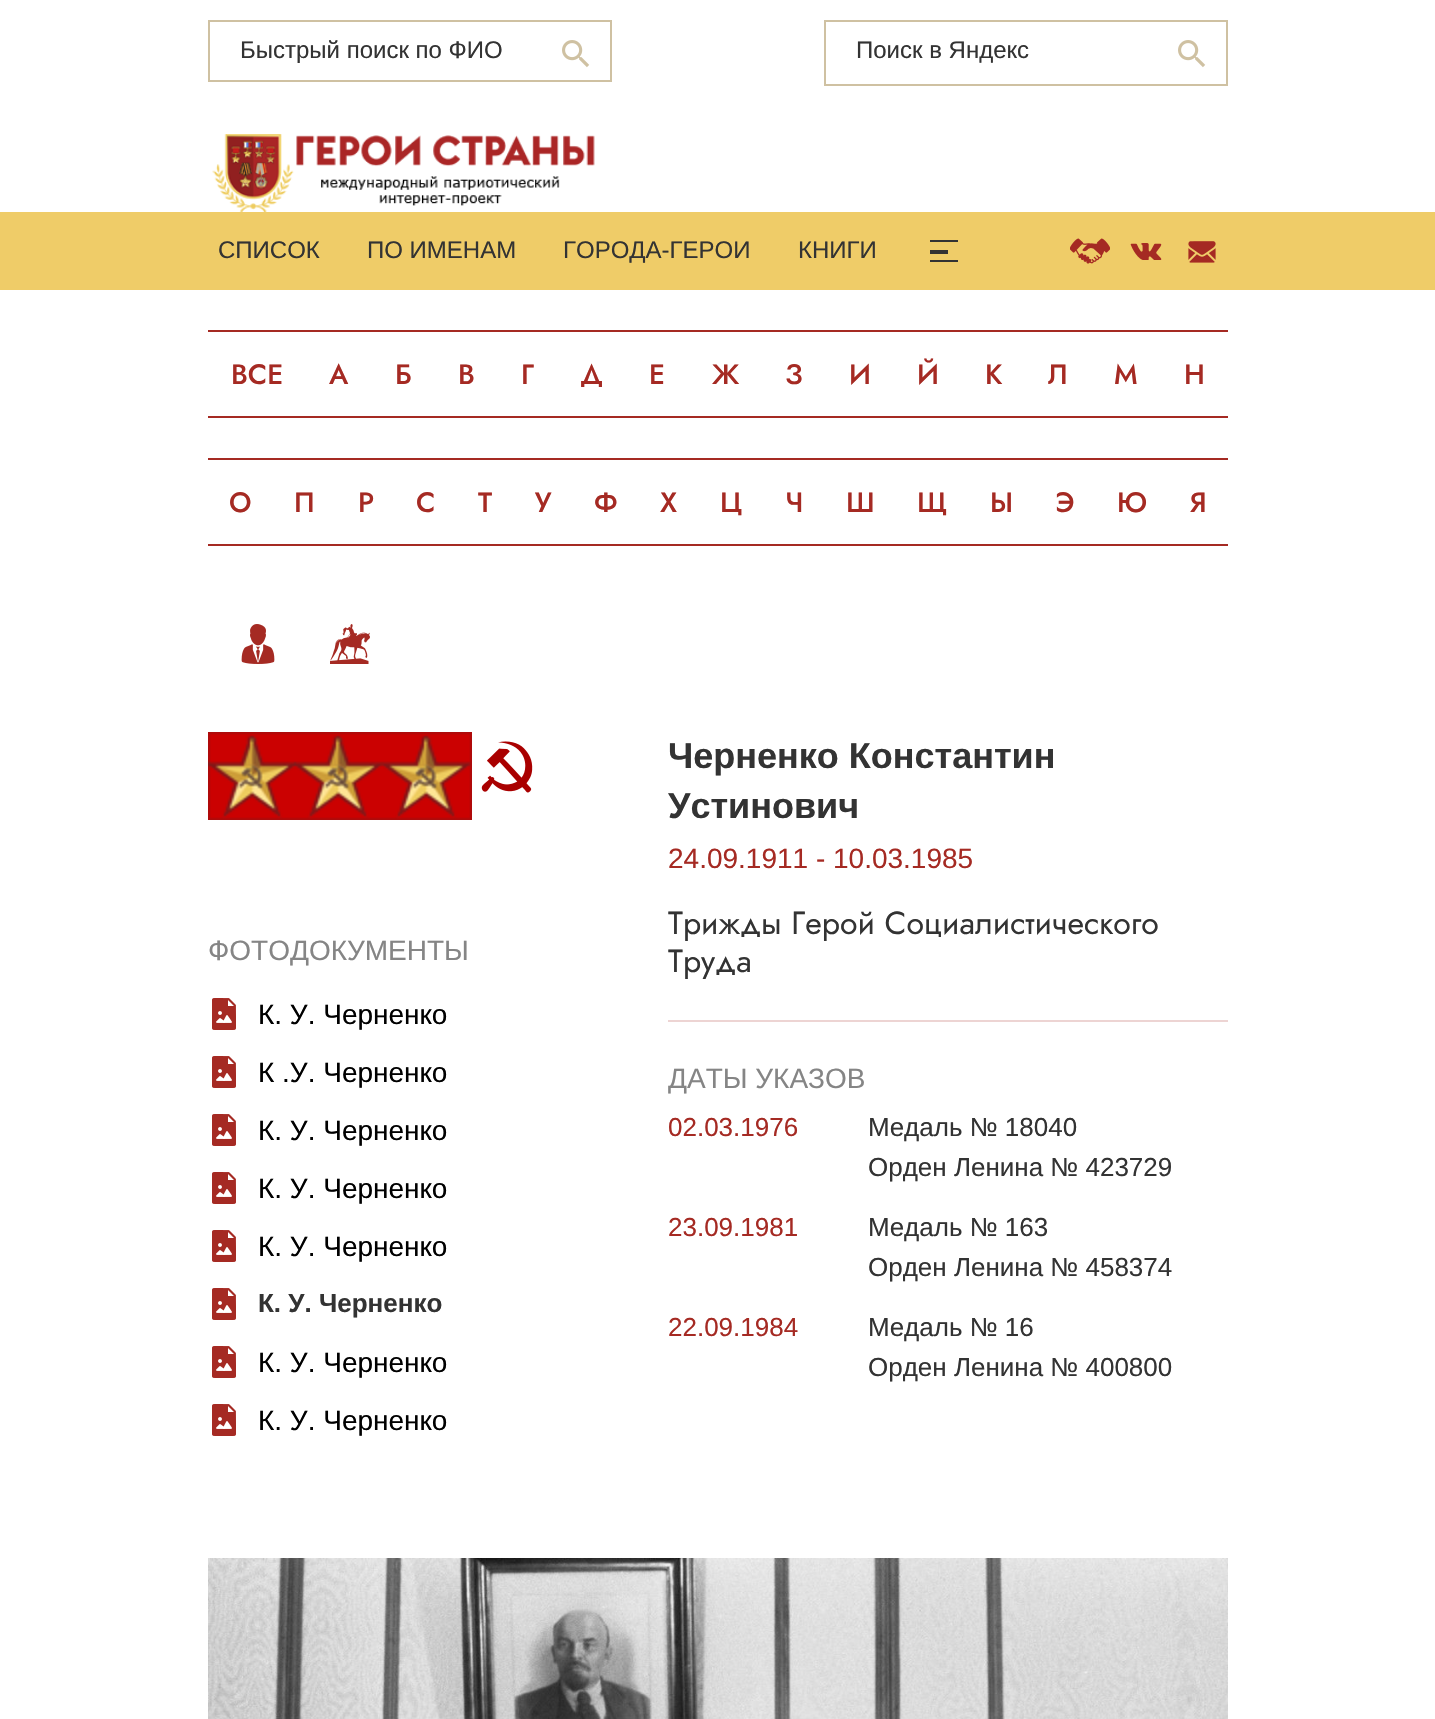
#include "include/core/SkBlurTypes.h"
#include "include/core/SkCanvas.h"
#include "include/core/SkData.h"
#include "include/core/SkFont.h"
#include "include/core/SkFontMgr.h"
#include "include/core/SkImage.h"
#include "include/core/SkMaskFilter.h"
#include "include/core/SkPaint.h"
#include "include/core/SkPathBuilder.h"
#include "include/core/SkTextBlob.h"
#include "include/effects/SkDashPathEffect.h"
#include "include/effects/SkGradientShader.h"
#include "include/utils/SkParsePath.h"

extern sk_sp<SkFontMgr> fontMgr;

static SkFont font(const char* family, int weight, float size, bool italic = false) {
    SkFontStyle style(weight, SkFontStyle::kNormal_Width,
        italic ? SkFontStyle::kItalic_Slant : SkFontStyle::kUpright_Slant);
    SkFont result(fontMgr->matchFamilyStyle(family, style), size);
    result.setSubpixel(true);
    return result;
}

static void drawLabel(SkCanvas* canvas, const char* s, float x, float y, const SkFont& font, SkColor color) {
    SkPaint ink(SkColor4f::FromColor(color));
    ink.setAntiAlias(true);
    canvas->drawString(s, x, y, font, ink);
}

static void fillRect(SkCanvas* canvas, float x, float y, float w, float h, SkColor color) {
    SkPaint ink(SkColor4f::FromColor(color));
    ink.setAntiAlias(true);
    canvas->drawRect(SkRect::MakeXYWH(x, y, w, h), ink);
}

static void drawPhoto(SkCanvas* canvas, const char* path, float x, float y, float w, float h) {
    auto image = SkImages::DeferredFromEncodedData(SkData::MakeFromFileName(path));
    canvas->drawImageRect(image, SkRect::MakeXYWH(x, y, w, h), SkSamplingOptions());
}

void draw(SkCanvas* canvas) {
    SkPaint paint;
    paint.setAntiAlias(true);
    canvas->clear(0xFFFFFFFF);
    paint.setStroke(true);
    paint.setStrokeWidth(2);
    paint.setColor(0xFFCFC1A2);
    canvas->drawRect(SkRect::MakeXYWH(209, 21, 402, 60), paint);
    SkFont font1 = font("Liberation Sans", 400, 24);
    drawLabel(canvas, "Быстрый поиск по ФИО", 240, 58, font1, 0xFF333333);
    drawPhoto(canvas, "assets/img1.png", 562, 40, 28, 28);
    canvas->drawRect(SkRect::MakeXYWH(825, 21, 402, 64), paint);
    drawLabel(canvas, "Поиск в Яндекс", 856, 58, font1, 0xFF333333);
    drawPhoto(canvas, "assets/img1.png", 1178, 40, 28, 28);
    drawPhoto(canvas, "assets/img2.png", 212, 134, 383, 78);
    fillRect(canvas, 0, 212, 1435, 78, 0xFFEFCC68);
    drawLabel(canvas, "СПИСОК", 218, 258, font1, 0xFF333333);
    drawLabel(canvas, "ПО ИМЕНАМ", 367, 258, font1, 0xFF333333);
    drawLabel(canvas, "ГОРОДА-ГЕРОИ", 563, 258, font1, 0xFF333333);
    drawLabel(canvas, "КНИГИ", 798, 258, font1, 0xFF333333);
    fillRect(canvas, 930, 240, 28, 2, 0xFF333333);
    fillRect(canvas, 930, 250, 18, 4, 0xFF333333);
    fillRect(canvas, 930, 260, 28, 2, 0xFF333333);
    drawPhoto(canvas, "assets/img3.png", 1070, 238, 40, 26);
    drawPhoto(canvas, "assets/img4.png", 1130, 243, 32, 17);
    drawPhoto(canvas, "assets/img5.png", 1188, 241, 28, 22);
    fillRect(canvas, 208, 330, 1020, 2, 0xFFA52A23);
    fillRect(canvas, 208, 416, 1020, 2, 0xFFA52A23);
    SkFont font2 = font("Jost", 500, 28);
    drawLabel(canvas, "ВСЕ", 231, 384, font2, 0xFFA52A23);
    drawLabel(canvas, "А", 329, 384, font2, 0xFFA52A23);
    drawLabel(canvas, "Б", 395, 384, font2, 0xFFA52A23);
    drawLabel(canvas, "В", 458, 384, font2, 0xFFA52A23);
    drawLabel(canvas, "Г", 521, 384, font2, 0xFFA52A23);
    drawLabel(canvas, "Д", 580, 384, font2, 0xFFA52A23);
    drawLabel(canvas, "Е", 649, 384, font2, 0xFFA52A23);
    drawLabel(canvas, "Ж", 712, 384, font2, 0xFFA52A23);
    drawLabel(canvas, "З", 785, 384, font2, 0xFFA52A23);
    drawLabel(canvas, "И", 849, 384, font2, 0xFFA52A23);
    drawLabel(canvas, "Й", 917, 384, font2, 0xFFA52A23);
    drawLabel(canvas, "К", 985, 384, font2, 0xFFA52A23);
    drawLabel(canvas, "Л", 1048, 384, font2, 0xFFA52A23);
    drawLabel(canvas, "М", 1114, 384, font2, 0xFFA52A23);
    drawLabel(canvas, "Н", 1184, 384, font2, 0xFFA52A23);
    fillRect(canvas, 208, 458, 1020, 2, 0xFFA52A23);
    fillRect(canvas, 208, 544, 1020, 2, 0xFFA52A23);
    drawLabel(canvas, "О", 229, 512, font2, 0xFFA52A23);
    drawLabel(canvas, "П", 294, 512, font2, 0xFFA52A23);
    drawLabel(canvas, "Р", 358, 512, font2, 0xFFA52A23);
    drawLabel(canvas, "С", 416, 512, font2, 0xFFA52A23);
    drawLabel(canvas, "Т", 478, 512, font2, 0xFFA52A23);
    drawLabel(canvas, "У", 535, 512, font2, 0xFFA52A23);
    drawLabel(canvas, "Ф", 594, 512, font2, 0xFFA52A23);
    drawLabel(canvas, "Х", 660, 512, font2, 0xFFA52A23);
    drawLabel(canvas, "Ц", 720, 512, font2, 0xFFA52A23);
    drawLabel(canvas, "Ч", 785, 512, font2, 0xFFA52A23);
    drawLabel(canvas, "Ш", 846, 512, font2, 0xFFA52A23);
    drawLabel(canvas, "Щ", 917, 512, font2, 0xFFA52A23);
    drawLabel(canvas, "Ы", 990, 512, font2, 0xFFA52A23);
    drawLabel(canvas, "Э", 1055, 512, font2, 0xFFA52A23);
    drawLabel(canvas, "Ю", 1117, 512, font2, 0xFFA52A23);
    drawLabel(canvas, "Я", 1190, 512, font2, 0xFFA52A23);
    drawPhoto(canvas, "assets/img6.png", 241, 624, 34, 40);
    drawPhoto(canvas, "assets/img7.png", 330, 624, 40, 40);
    drawPhoto(canvas, "assets/img8.png", 208, 732, 264, 88);
    drawPhoto(canvas, "assets/img9.png", 481, 741, 52, 52);
    SkFont font3 = font("Liberation Sans", 400, 28);
    drawLabel(canvas, "ФОТОДОКУМЕНТЫ", 208, 960, font3, 0xFF858585);
    drawPhoto(canvas, "assets/img10.png", 212, 998, 24, 32);
    drawLabel(canvas, "К. У. Черненко", 258, 1024, font3, 0xFF000000);
    drawPhoto(canvas, "assets/img10.png", 212, 1056, 24, 32);
    drawLabel(canvas, "К .У. Черненко", 258, 1082, font3, 0xFF000000);
    drawPhoto(canvas, "assets/img10.png", 212, 1114, 24, 32);
    drawLabel(canvas, "К. У. Черненко", 258, 1140, font3, 0xFF000000);
    drawPhoto(canvas, "assets/img10.png", 212, 1172, 24, 32);
    drawLabel(canvas, "К. У. Черненко", 258, 1198, font3, 0xFF000000);
    drawPhoto(canvas, "assets/img10.png", 212, 1230, 24, 32);
    drawLabel(canvas, "К. У. Черненко", 258, 1256, font3, 0xFF000000);
    drawPhoto(canvas, "assets/img10.png", 212, 1288, 24, 32);
    SkFont font4 = font("Liberation Sans", 700, 26);
    drawLabel(canvas, "К. У. Черненко", 258, 1312, font4, 0xFF333333);
    drawPhoto(canvas, "assets/img10.png", 212, 1346, 24, 32);
    drawLabel(canvas, "К. У. Черненко", 258, 1372, font3, 0xFF000000);
    drawPhoto(canvas, "assets/img10.png", 212, 1404, 24, 32);
    drawLabel(canvas, "К. У. Черненко", 258, 1430, font3, 0xFF000000);
    SkFont font5 = font("Liberation Sans", 700, 36);
    drawLabel(canvas, "Черненко Константин", 668, 768, font5, 0xFF333333);
    drawLabel(canvas, "Устинович", 668, 818, font5, 0xFF333333);
    drawLabel(canvas, "24.09.1911 - 10.03.1985", 668, 868, font3, 0xFFA52A23);
    fillRect(canvas, 668, 1020, 560, 2, 0xFFEDD4D3);
    SkFont font6 = font("Jost", 400, 32);
    drawLabel(canvas, "Трижды Герой Социалистического", 668, 934, font6, 0xFF333333);
    drawLabel(canvas, "Труда", 668, 972, font6, 0xFF333333);
    drawLabel(canvas, "ДАТЫ УКАЗОВ", 668, 1088, font3, 0xFF858585);
    SkFont font7 = font("Liberation Sans", 400, 26);
    drawLabel(canvas, "02.03.1976", 668, 1136, font7, 0xFFA52A23);
    drawLabel(canvas, "Медаль № 18040", 868, 1136, font7, 0xFF333333);
    drawLabel(canvas, "Орден Ленина № 423729", 868, 1176, font7, 0xFF333333);
    drawLabel(canvas, "23.09.1981", 668, 1236, font7, 0xFFA52A23);
    drawLabel(canvas, "Медаль № 163", 868, 1236, font7, 0xFF333333);
    drawLabel(canvas, "Орден Ленина № 458374", 868, 1276, font7, 0xFF333333);
    drawLabel(canvas, "22.09.1984", 668, 1336, font7, 0xFFA52A23);
    drawLabel(canvas, "Медаль № 16", 868, 1336, font7, 0xFF333333);
    drawLabel(canvas, "Орден Ленина № 400800", 868, 1376, font7, 0xFF333333);
    drawPhoto(canvas, "assets/img11.png", 208, 1558, 1020, 161);
}
